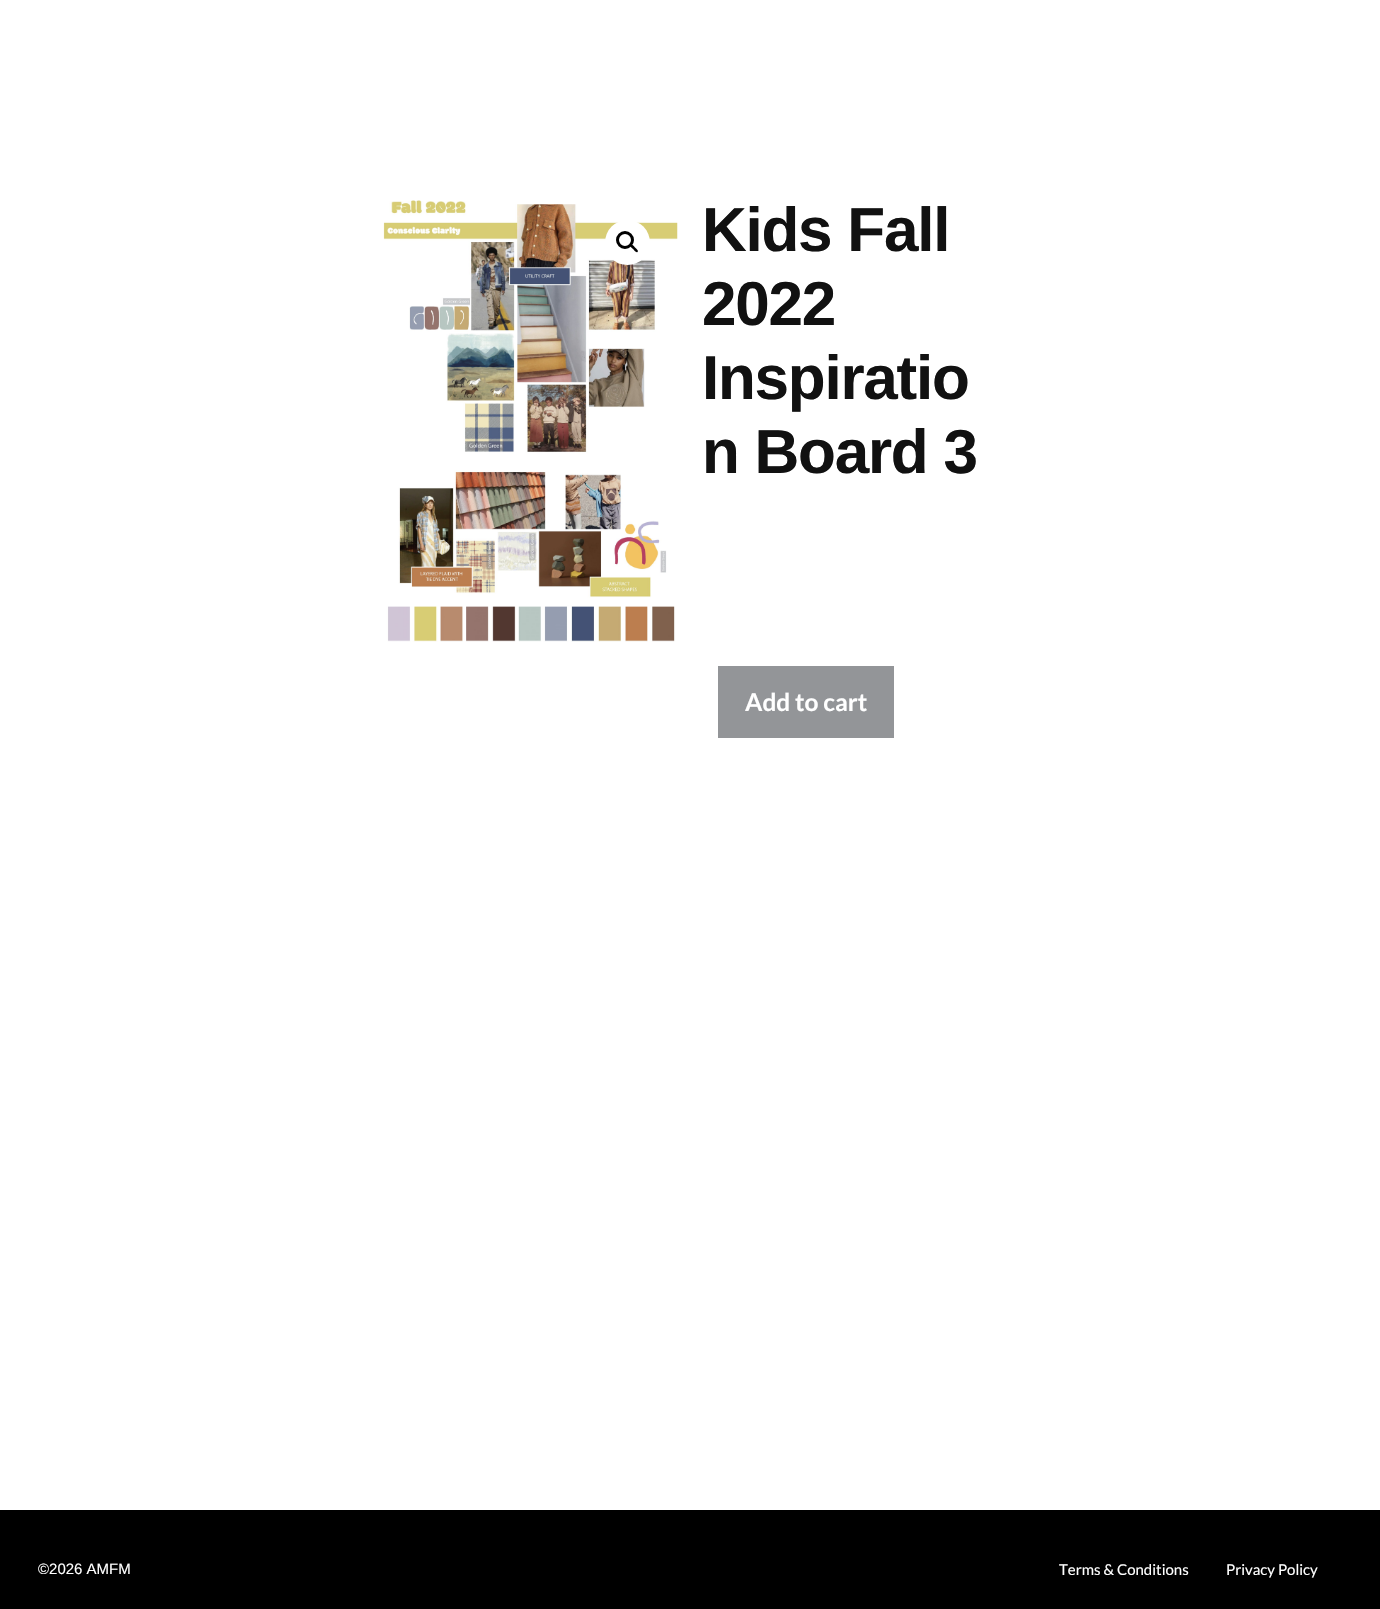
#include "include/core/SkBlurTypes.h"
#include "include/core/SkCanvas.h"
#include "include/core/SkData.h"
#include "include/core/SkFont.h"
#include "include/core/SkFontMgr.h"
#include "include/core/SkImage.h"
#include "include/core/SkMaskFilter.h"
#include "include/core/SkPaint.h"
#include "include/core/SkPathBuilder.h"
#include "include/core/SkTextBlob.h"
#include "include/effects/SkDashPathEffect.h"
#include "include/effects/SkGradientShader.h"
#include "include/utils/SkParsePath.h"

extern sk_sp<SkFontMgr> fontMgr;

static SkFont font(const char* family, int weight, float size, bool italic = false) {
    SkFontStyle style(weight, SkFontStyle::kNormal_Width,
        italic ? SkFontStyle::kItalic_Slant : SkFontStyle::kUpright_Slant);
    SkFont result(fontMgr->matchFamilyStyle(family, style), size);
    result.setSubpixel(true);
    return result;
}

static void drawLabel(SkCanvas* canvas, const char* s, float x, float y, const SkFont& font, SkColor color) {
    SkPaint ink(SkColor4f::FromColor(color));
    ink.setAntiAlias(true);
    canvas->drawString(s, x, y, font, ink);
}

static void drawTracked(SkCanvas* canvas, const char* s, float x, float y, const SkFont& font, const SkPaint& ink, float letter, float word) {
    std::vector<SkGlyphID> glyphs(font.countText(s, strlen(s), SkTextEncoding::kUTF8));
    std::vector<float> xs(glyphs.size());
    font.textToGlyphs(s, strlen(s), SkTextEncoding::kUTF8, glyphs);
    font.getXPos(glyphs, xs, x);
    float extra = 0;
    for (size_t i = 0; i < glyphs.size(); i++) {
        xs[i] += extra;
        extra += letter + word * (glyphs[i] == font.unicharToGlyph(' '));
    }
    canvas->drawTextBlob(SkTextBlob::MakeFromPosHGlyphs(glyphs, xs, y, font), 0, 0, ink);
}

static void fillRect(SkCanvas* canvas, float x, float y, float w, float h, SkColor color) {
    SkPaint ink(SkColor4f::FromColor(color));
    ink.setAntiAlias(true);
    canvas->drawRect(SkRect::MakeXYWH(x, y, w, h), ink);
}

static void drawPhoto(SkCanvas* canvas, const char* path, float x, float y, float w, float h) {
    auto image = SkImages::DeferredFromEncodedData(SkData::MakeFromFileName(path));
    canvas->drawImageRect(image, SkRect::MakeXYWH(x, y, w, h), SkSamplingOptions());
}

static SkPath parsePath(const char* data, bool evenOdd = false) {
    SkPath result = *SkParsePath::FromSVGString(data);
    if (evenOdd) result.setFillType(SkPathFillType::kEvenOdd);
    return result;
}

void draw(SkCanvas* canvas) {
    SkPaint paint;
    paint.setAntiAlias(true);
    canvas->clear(0xFFFFFFFF);
    drawPhoto(canvas, "assets/img1.png", 383, 200, 295, 442);
    paint.setColor(0xFFFFFFFF);
    canvas->drawCircle(627.5f, 242.5f, 22.5f, paint);
    paint.setStroke(true);
    paint.setStrokeWidth(3);
    paint.setColor(0xFF000000);
    canvas->drawCircle(625, 240, 7.5f, paint);
    paint.setStroke(false);
    canvas->drawPath(parsePath("M630.5 244.5C632 243.5 634 246.5 635 247.5C635.5 248 639 250.5 637.5 252C636 253 634 250 633 249C632.5 248.5 629 246 630.5 244.5Z"), paint);
    SkFont font1 = font("Liberation Sans", 700, 62);
    paint.setColor(0xFF111111);
    drawTracked(canvas, "Kids Fall", 702, 251, font1, paint, -1.25f, 0);
    drawTracked(canvas, "2022", 702, 325, font1, paint, -1.25f, 0);
    drawTracked(canvas, "Inspiratio", 702, 399, font1, paint, -1.25f, 0);
    drawTracked(canvas, "n Board 3", 702, 473, font1, paint, -1.25f, 0);
    fillRect(canvas, 718, 666, 176, 72, 0xFF939598);
    SkFont font2 = font("Lato", 700, 24.5f);
    drawLabel(canvas, "Add to cart", 745, 711, font2, 0xFFFFFFFF);
    fillRect(canvas, 0, 1510, 1380, 99, 0xFF000000);
    SkFont font3 = font("Liberation Sans", 400, 15);
    drawLabel(canvas, "©2026 AMFM", 38, 1574, font3, 0xFFFFFFFF);
    SkFont font4 = font("Lato", 400, 15);
    drawLabel(canvas, "Terms & Conditions", 1059, 1575, font4, 0xFFFFFFFF);
    drawLabel(canvas, "Privacy Policy", 1226, 1575, font4, 0xFFFFFFFF);
}
